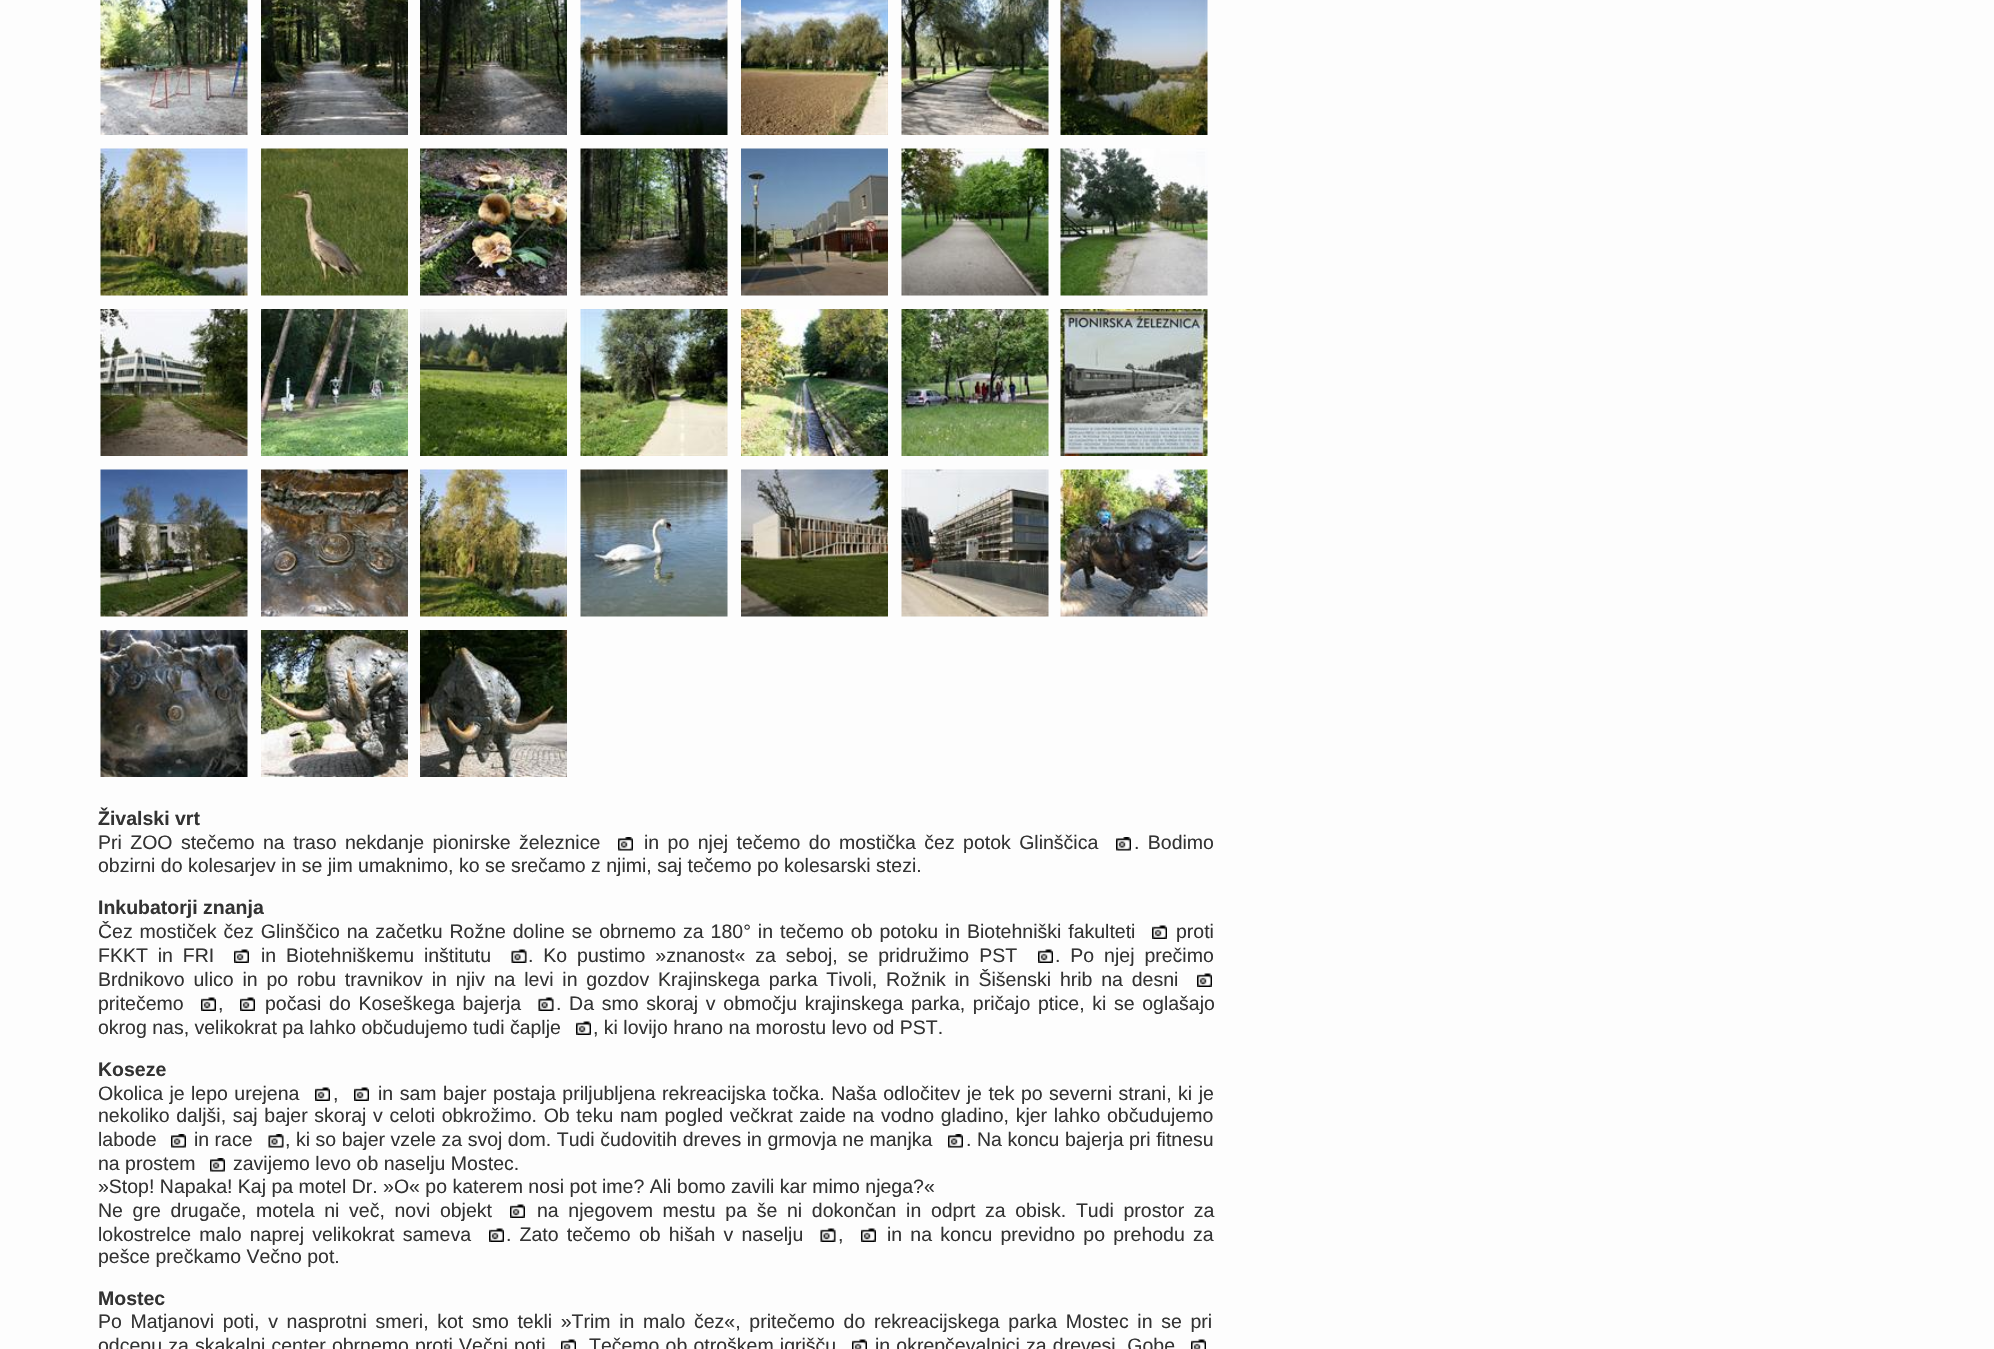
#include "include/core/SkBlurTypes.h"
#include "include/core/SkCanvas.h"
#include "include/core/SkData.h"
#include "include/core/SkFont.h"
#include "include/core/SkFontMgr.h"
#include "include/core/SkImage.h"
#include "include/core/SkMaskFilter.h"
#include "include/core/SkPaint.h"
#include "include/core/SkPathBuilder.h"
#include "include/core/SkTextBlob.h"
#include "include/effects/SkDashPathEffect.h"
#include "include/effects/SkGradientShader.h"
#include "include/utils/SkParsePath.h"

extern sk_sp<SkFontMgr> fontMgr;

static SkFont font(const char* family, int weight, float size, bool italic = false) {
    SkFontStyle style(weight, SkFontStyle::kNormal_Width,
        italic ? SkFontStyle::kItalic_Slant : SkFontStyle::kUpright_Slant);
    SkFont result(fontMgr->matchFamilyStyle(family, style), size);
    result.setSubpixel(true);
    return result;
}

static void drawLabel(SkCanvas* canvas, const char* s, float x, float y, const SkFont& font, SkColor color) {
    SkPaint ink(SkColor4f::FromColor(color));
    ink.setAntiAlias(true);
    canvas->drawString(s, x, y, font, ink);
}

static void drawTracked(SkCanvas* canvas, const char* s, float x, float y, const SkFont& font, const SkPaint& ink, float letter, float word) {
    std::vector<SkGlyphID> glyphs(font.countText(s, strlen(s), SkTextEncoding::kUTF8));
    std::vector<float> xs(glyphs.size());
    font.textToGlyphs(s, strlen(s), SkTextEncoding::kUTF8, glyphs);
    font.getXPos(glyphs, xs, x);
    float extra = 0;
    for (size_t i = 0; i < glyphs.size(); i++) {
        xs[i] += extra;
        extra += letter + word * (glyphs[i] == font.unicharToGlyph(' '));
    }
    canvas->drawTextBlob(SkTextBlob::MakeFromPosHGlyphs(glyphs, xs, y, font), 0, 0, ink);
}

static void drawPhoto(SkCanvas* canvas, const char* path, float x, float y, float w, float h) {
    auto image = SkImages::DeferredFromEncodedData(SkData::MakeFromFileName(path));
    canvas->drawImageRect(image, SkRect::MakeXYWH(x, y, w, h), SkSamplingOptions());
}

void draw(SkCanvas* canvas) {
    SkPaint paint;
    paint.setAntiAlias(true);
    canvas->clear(0xFFFDFDFD);
    drawPhoto(canvas, "assets/img1.png", 100, 0, 148, 135);
    drawPhoto(canvas, "assets/img2.png", 261, 0, 147, 135);
    drawPhoto(canvas, "assets/img3.png", 420, 0, 147, 135);
    drawPhoto(canvas, "assets/img4.png", 580, 0, 148, 135);
    drawPhoto(canvas, "assets/img5.png", 741, 0, 147, 135);
    drawPhoto(canvas, "assets/img6.png", 901, 0, 148, 135);
    drawPhoto(canvas, "assets/img7.png", 1060, 0, 148, 135);
    drawPhoto(canvas, "assets/img8.png", 100, 148, 148, 148);
    drawPhoto(canvas, "assets/img9.png", 261, 148, 147, 148);
    drawPhoto(canvas, "assets/img10.png", 420, 148, 147, 148);
    drawPhoto(canvas, "assets/img11.png", 580, 148, 148, 148);
    drawPhoto(canvas, "assets/img12.png", 741, 148, 147, 148);
    drawPhoto(canvas, "assets/img13.png", 901, 148, 148, 148);
    drawPhoto(canvas, "assets/img14.png", 1060, 148, 148, 148);
    drawPhoto(canvas, "assets/img15.png", 100, 309, 148, 147);
    drawPhoto(canvas, "assets/img16.png", 261, 309, 147, 147);
    drawPhoto(canvas, "assets/img17.png", 420, 309, 147, 147);
    drawPhoto(canvas, "assets/img18.png", 580, 309, 148, 147);
    drawPhoto(canvas, "assets/img19.png", 741, 309, 147, 147);
    drawPhoto(canvas, "assets/img20.png", 901, 309, 148, 147);
    drawPhoto(canvas, "assets/img21.png", 1060, 309, 148, 147);
    drawPhoto(canvas, "assets/img22.png", 100, 469, 148, 148);
    drawPhoto(canvas, "assets/img23.png", 261, 469, 147, 148);
    drawPhoto(canvas, "assets/img24.png", 420, 469, 147, 148);
    drawPhoto(canvas, "assets/img25.png", 580, 469, 148, 148);
    drawPhoto(canvas, "assets/img26.png", 741, 469, 147, 148);
    drawPhoto(canvas, "assets/img27.png", 901, 469, 148, 148);
    drawPhoto(canvas, "assets/img28.png", 1060, 469, 148, 148);
    drawPhoto(canvas, "assets/img29.png", 100, 630, 148, 147);
    drawPhoto(canvas, "assets/img30.png", 261, 630, 147, 147);
    drawPhoto(canvas, "assets/img31.png", 420, 630, 147, 147);
    SkFont font1 = font("Liberation Sans", 700, 19.5f);
    drawLabel(canvas, "Živalski vrt", 98, 825, font1, 0xFF333333);
    SkFont font2 = font("Liberation Sans", 400, 19.5f);
    paint.setColor(0xFF333333);
    drawTracked(canvas, "Pri ZOO stečemo na traso nekdanje pionirske železnice", 98, 849, font2, paint, 0, 3);
    drawPhoto(canvas, "assets/img32.png", 618, 837, 15, 14);
    drawTracked(canvas, "in po njej tečemo do mostička čez potok Glinščica", 644, 849, font2, paint, 0, 3);
    drawPhoto(canvas, "assets/img33.png", 1116, 837, 15, 14);
    drawTracked(canvas, ". Bodimo", 1134, 849, font2, paint, 0, 3);
    drawLabel(canvas, "obzirni do kolesarjev in se jim umaknimo, ko se srečamo z njimi, saj tečemo po kolesarski stezi.", 98, 872, font2, 0xFF333333);
    drawLabel(canvas, "Inkubatorji znanja", 98, 914, font1, 0xFF333333);
    drawTracked(canvas, "Čez mostiček čez Glinščico na začetku Rožne doline se obrnemo za 180° in tečemo ob potoku in Biotehniški fakulteti", 98, 938, font2, paint, 0, 1.5f);
    drawPhoto(canvas, "assets/img34.png", 1152, 925, 15, 14);
    drawLabel(canvas, "proti", 1176, 938, font2, 0xFF333333);
    drawTracked(canvas, "FKKT in FRI", 98, 962, font2, paint, 0, 4.5f);
    drawPhoto(canvas, "assets/img35.png", 234, 949, 15, 14);
    drawTracked(canvas, "in Biotehniškemu inštitutu", 261, 962, font2, paint, 0, 4.5f);
    drawPhoto(canvas, "assets/img36.png", 511, 949, 16, 14);
    drawTracked(canvas, ". Ko pustimo »znanost« za seboj, se pridružimo PST", 528, 962, font2, paint, 0, 4.5f);
    drawPhoto(canvas, "assets/img34.png", 1038, 949, 15, 14);
    drawTracked(canvas, ". Po njej prečimo", 1055, 962, font2, paint, 0, 4.5f);
    drawTracked(canvas, "Brdnikovo ulico in po robu travnikov in njiv na levi in gozdov Krajinskega parka Tivoli, Rožnik in Šišenski hrib na desni", 98, 986, font2, paint, 0, 3.4f);
    drawPhoto(canvas, "assets/img34.png", 1197, 973, 15, 14);
    drawLabel(canvas, "pritečemo", 98, 1010, font2, 0xFF333333);
    drawPhoto(canvas, "assets/img35.png", 201, 997, 15, 14);
    drawLabel(canvas, ",", 218, 1010, font2, 0xFF333333);
    drawPhoto(canvas, "assets/img35.png", 240, 997, 15, 14);
    drawTracked(canvas, "počasi do Koseškega bajerja", 265, 1010, font2, paint, 0, 2.25f);
    drawPhoto(canvas, "assets/img37.png", 538, 997, 16, 14);
    drawTracked(canvas, ". Da smo skoraj v območju krajinskega parka, pričajo ptice, ki se oglašajo", 556, 1010, font2, paint, 0, 2.25f);
    drawLabel(canvas, "okrog nas, velikokrat pa lahko občudujemo tudi čaplje", 98, 1034, font2, 0xFF333333);
    drawPhoto(canvas, "assets/img34.png", 576, 1021, 15, 14);
    drawLabel(canvas, ", ki lovijo hrano na morostu levo od PST.", 593, 1034, font2, 0xFF333333);
    drawLabel(canvas, "Koseze", 98, 1076, font1, 0xFF333333);
    drawTracked(canvas, "Okolica je lepo urejena", 98, 1100, font2, paint, 0, 1);
    drawPhoto(canvas, "assets/img34.png", 315, 1087, 15, 14);
    drawLabel(canvas, ",", 333, 1100, font2, 0xFF333333);
    drawPhoto(canvas, "assets/img34.png", 354, 1087, 15, 14);
    drawTracked(canvas, "in sam bajer postaja priljubljena rekreacijska točka. Naša odločitev je tek po severni strani, ki je", 378, 1100, font2, paint, 0, 1.1f);
    drawTracked(canvas, "nekoliko daljši, saj bajer skoraj v celoti obkrožimo. Ob teku nam pogled večkrat zaide na vodno gladino, kjer lahko občudujemo", 98, 1122, font2, paint, 0, 1.25f);
    drawLabel(canvas, "labode", 98, 1146, font2, 0xFF333333);
    drawPhoto(canvas, "assets/img32.png", 171, 1134, 15, 14);
    drawLabel(canvas, "in race", 194, 1146, font2, 0xFF333333);
    drawPhoto(canvas, "assets/img38.png", 268, 1134, 16, 14);
    drawTracked(canvas, ", ki so bajer vzele za svoj dom. Tudi čudovitih dreves in grmovja ne manjka", 285, 1146, font2, paint, 0, 0.1f);
    drawPhoto(canvas, "assets/img32.png", 948, 1134, 15, 14);
    drawTracked(canvas, ". Na koncu bajerja pri fitnesu", 966, 1146, font2, paint, 0, 0.1f);
    drawLabel(canvas, "na prostem", 98, 1170, font2, 0xFF333333);
    drawPhoto(canvas, "assets/img32.png", 210, 1158, 15, 14);
    drawLabel(canvas, "zavijemo levo ob naselju Mostec.", 233, 1170, font2, 0xFF333333);
    drawLabel(canvas, "»Stop! Napaka! Kaj pa motel Dr. »O« po katerem nosi pot ime? Ali bomo zavili kar mimo njega?«", 98, 1193, font2, 0xFF333333);
    drawTracked(canvas, "Ne gre drugače, motela ni več, novi objekt", 98, 1217, font2, paint, 0, 4.25f);
    drawPhoto(canvas, "assets/img35.png", 510, 1204, 15, 14);
    drawTracked(canvas, "na njegovem mestu pa še ni dokončan in odprt za obisk. Tudi prostor za", 537, 1217, font2, paint, 0, 4.25f);
    drawTracked(canvas, "lokostrelce malo naprej velikokrat sameva", 98, 1241, font2, paint, 0, 2.75f);
    drawPhoto(canvas, "assets/img34.png", 489, 1228, 15, 14);
    drawTracked(canvas, ". Zato tečemo ob hišah v naselju", 506, 1241, font2, paint, 0, 2.75f);
    drawPhoto(canvas, "assets/img39.png", 820, 1228, 16, 14);
    drawLabel(canvas, ",", 838, 1241, font2, 0xFF333333);
    drawPhoto(canvas, "assets/img35.png", 861, 1228, 15, 14);
    drawTracked(canvas, "in na koncu previdno po prehodu za", 887, 1241, font2, paint, 0, 2.75f);
    drawLabel(canvas, "pešce prečkamo Večno pot.", 98, 1263, font2, 0xFF333333);
    drawLabel(canvas, "Mostec", 98, 1305, font1, 0xFF333333);
    drawTracked(canvas, "Po Matjanovi poti, v nasprotni smeri, kot smo tekli »Trim in malo čez«, pritečemo do rekreacijskega parka Mostec in se pri", 98, 1328, font2, paint, 0, 3.25f);
    drawTracked(canvas, "odcepu za skakalni center obrnemo proti Večni poti", 98, 1352, font2, paint, 0, 0.75f);
    drawPhoto(canvas, "assets/img40.png", 561, 1339, 15, 10);
    drawTracked(canvas, "Tečemo ob otroškem igrišču", 589, 1352, font2, paint, 0, 0.75f);
    drawPhoto(canvas, "assets/img41.png", 852, 1339, 15, 10);
    drawTracked(canvas, "in okrepčevalnici za drevesi. Gobe", 875, 1352, font2, paint, 0, 0.75f);
    drawPhoto(canvas, "assets/img40.png", 1191, 1339, 15, 10);
}
